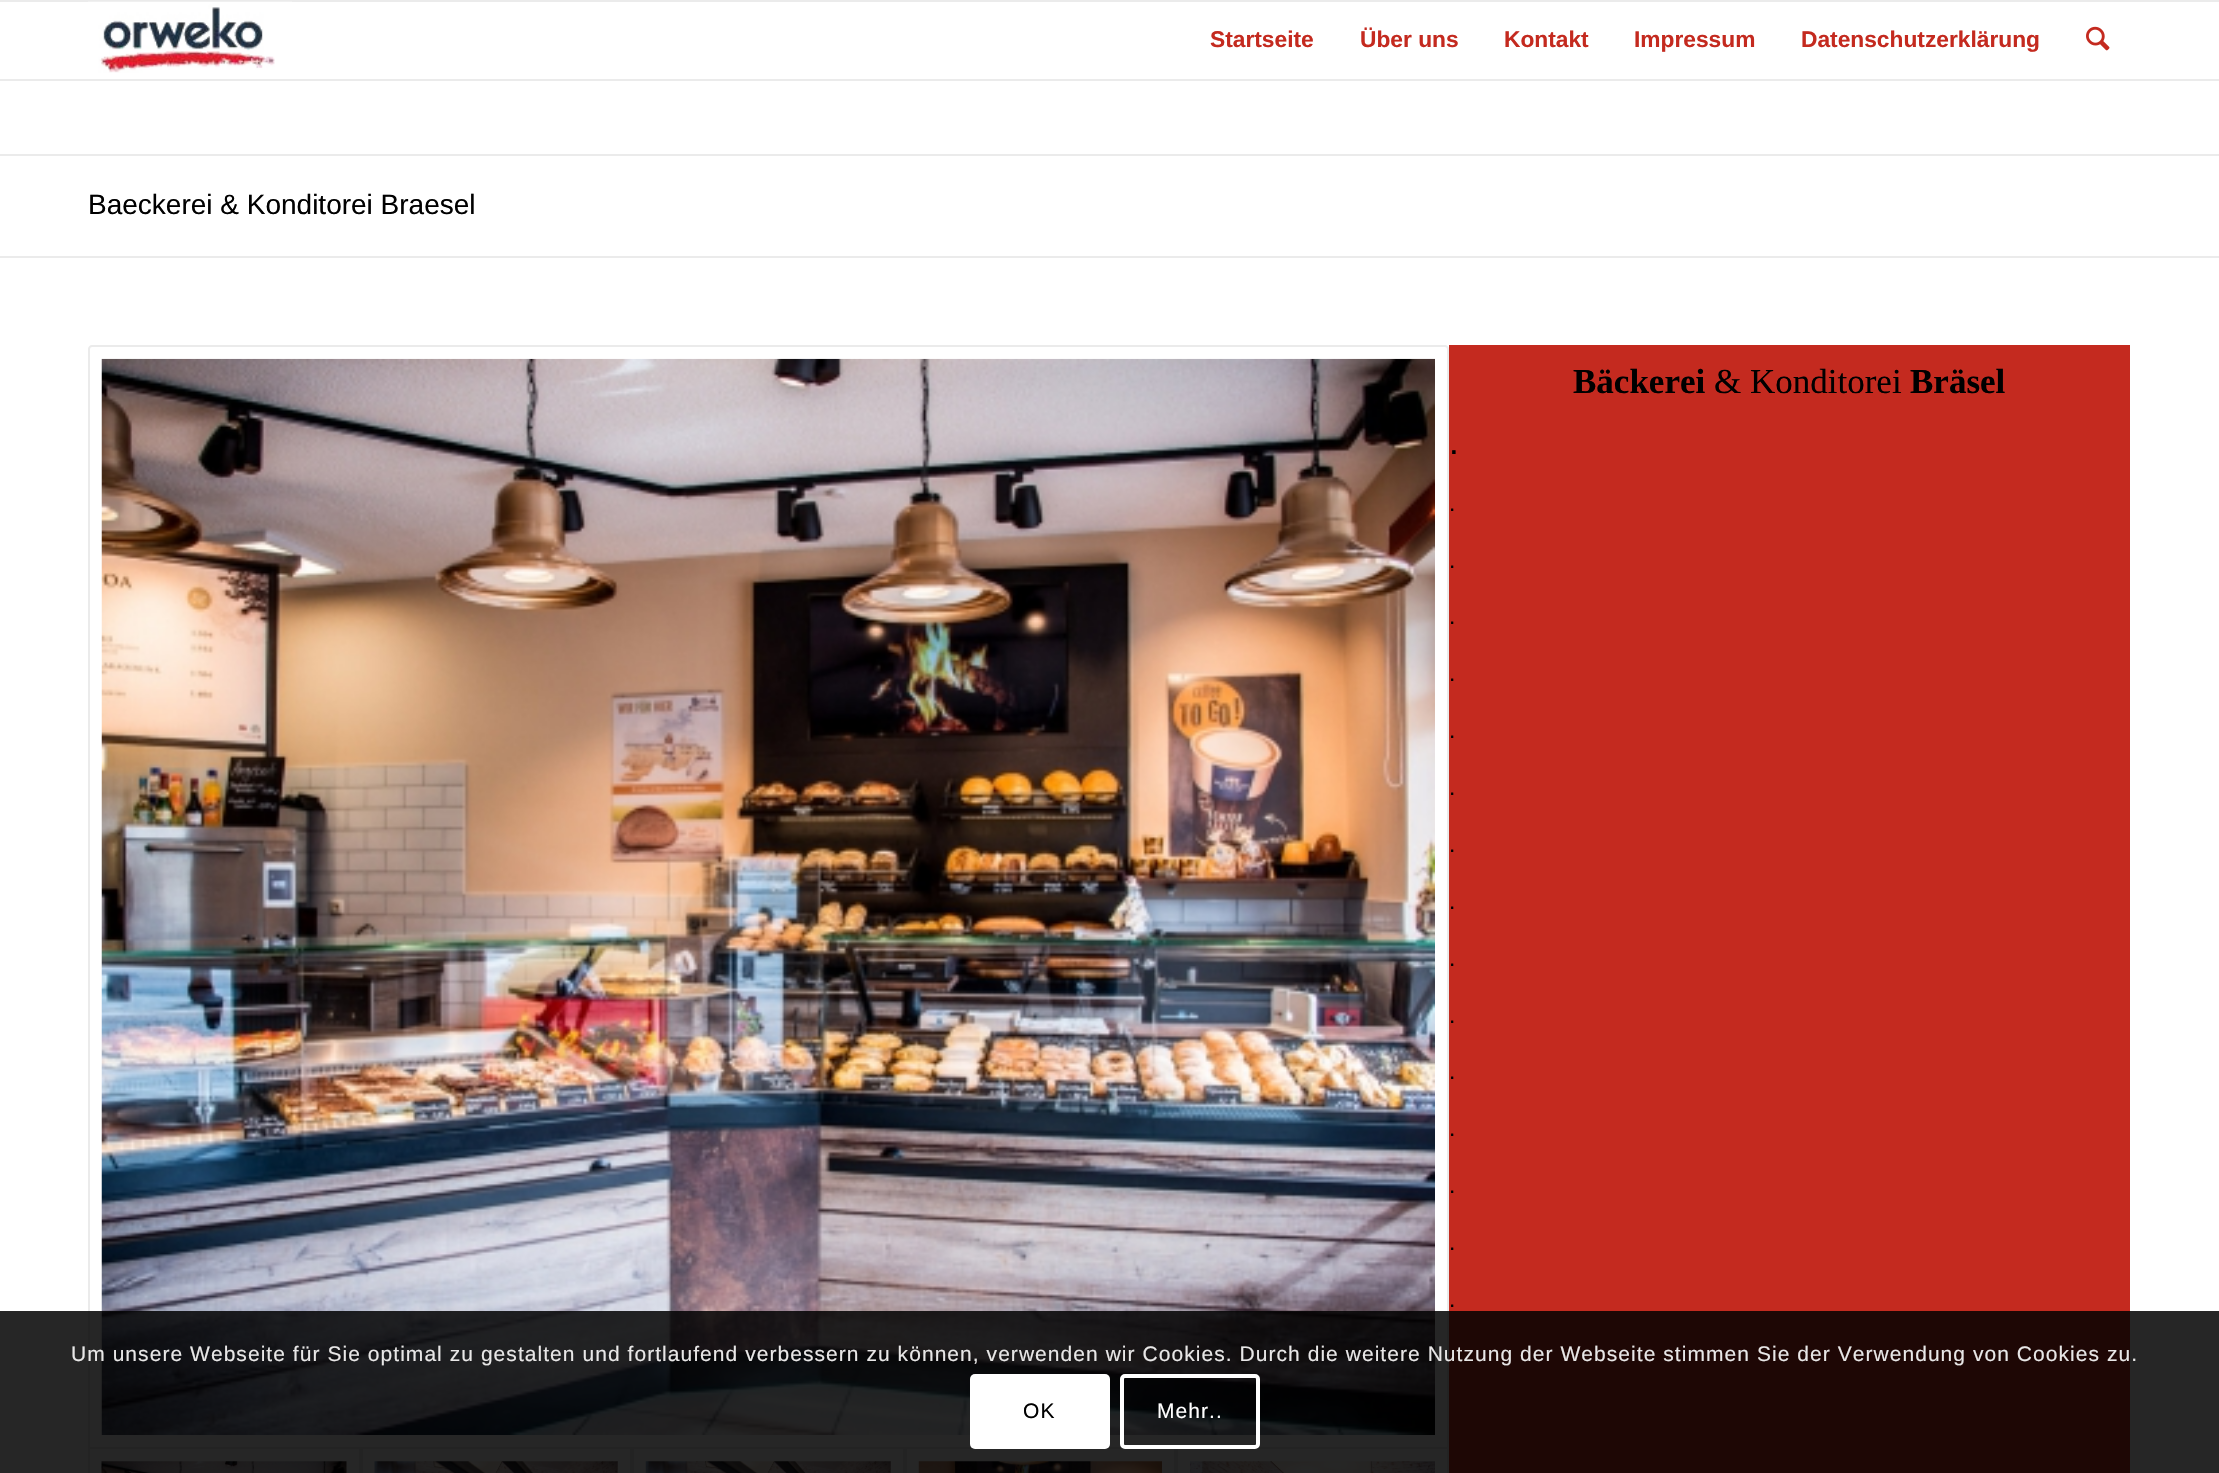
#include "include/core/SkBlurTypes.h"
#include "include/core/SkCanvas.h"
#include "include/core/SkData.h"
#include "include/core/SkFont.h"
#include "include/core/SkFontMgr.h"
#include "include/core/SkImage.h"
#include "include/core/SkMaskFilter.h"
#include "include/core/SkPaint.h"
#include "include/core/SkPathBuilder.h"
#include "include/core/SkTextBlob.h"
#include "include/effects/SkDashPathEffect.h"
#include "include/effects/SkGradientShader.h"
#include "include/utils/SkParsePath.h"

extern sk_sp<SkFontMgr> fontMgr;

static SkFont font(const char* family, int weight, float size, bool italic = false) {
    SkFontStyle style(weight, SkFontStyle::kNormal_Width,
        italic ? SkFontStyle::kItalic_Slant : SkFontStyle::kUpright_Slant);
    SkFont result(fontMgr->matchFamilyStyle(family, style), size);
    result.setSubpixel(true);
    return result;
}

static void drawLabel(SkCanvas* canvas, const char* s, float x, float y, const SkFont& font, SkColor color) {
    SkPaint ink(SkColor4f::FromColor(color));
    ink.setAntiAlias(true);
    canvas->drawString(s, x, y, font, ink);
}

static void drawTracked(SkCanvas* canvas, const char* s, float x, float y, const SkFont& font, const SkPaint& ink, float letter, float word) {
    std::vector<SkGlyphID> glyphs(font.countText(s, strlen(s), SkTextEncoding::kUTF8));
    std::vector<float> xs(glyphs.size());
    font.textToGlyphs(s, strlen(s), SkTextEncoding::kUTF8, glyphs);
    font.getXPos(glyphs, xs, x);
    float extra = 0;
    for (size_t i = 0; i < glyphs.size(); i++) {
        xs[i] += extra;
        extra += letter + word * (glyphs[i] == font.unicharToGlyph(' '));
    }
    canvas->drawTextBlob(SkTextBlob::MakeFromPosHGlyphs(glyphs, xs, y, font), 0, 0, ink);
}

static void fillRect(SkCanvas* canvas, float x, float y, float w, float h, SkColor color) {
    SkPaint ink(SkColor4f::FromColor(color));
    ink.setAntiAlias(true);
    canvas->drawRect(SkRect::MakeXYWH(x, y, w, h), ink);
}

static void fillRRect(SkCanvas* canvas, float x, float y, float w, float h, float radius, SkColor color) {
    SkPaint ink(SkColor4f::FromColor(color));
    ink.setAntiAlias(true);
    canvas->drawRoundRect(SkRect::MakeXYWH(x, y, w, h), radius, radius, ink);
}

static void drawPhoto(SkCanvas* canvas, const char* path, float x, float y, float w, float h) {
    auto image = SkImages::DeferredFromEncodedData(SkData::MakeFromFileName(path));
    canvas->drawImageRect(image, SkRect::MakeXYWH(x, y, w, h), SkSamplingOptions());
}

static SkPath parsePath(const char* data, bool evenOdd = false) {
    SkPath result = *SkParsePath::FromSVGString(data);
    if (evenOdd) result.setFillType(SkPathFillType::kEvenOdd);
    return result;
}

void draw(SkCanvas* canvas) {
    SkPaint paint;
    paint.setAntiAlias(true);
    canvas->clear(0xFFFFFFFF);
    fillRect(canvas, 0, 0, 2219, 2, 0xFFEBEBEB);
    fillRect(canvas, 0, 79, 2219, 2, 0xFFEBEBEB);
    drawPhoto(canvas, "assets/img1.png", 88, 1, 204, 72);
    SkFont font1 = font("Liberation Sans", 700, 22.75f);
    drawLabel(canvas, "Startseite", 1210, 47, font1, 0xFFC42A1F);
    drawLabel(canvas, "Über uns", 1360, 47, font1, 0xFFC42A1F);
    drawLabel(canvas, "Kontakt", 1504, 47, font1, 0xFFC42A1F);
    drawLabel(canvas, "Impressum", 1634, 47, font1, 0xFFC42A1F);
    drawLabel(canvas, "Datenschutzerklärung", 1801, 47, font1, 0xFFC42A1F);
    drawPhoto(canvas, "assets/img2.png", 2086, 26, 24, 25);
    fillRect(canvas, 0, 154, 2219, 2, 0xFFEBEBEB);
    SkFont font2 = font("Liberation Sans", 400, 28);
    drawLabel(canvas, "Baeckerei & Konditorei Braesel", 88, 214, font2, 0xFF000000);
    fillRect(canvas, 0, 256, 2219, 2, 0xFFEBEBEB);
    paint.setStroke(true);
    paint.setStrokeWidth(2);
    paint.setColor(0xFFEBEBEB);
    canvas->drawPath(parsePath("M92 346H1445C1446.5 346 1448 347.5 1448 349V1448H89V349C89 347.5 90.5 346 92 346Z"), paint);
    drawPhoto(canvas, "assets/img3.png", 101, 358, 1334, 1077);
    canvas->drawRect(SkRect::MakeXYWH(89, 1448, 271, 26), paint);
    drawPhoto(canvas, "assets/img4.png", 101, 1461, 246, 12);
    canvas->drawRect(SkRect::MakeXYWH(362, 1448, 269, 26), paint);
    drawPhoto(canvas, "assets/img5.png", 374, 1461, 244, 12);
    canvas->drawRect(SkRect::MakeXYWH(633, 1448, 271, 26), paint);
    drawPhoto(canvas, "assets/img6.png", 645, 1461, 246, 12);
    canvas->drawRect(SkRect::MakeXYWH(906, 1448, 269, 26), paint);
    drawPhoto(canvas, "assets/img7.png", 918, 1461, 244, 12);
    canvas->drawRect(SkRect::MakeXYWH(1177, 1448, 271, 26), paint);
    drawPhoto(canvas, "assets/img8.png", 1190, 1461, 245, 12);
    fillRect(canvas, 1449, 345, 681, 1128, 0xFFC42A1F);
    SkFont font3 = font("Liberation Serif", 700, 35);
    drawLabel(canvas, "Bäckerei", 1573, 393, font3, 0xFF000000);
    SkFont font4 = font("Liberation Serif", 400, 35);
    drawLabel(canvas, "& Konditorei", 1714, 393, font4, 0xFF000000);
    drawLabel(canvas, "Bräsel", 1910, 393, font3, 0xFF000000);
    SkFont font5 = font("Liberation Sans", 400, 35);
    drawLabel(canvas, ".", 1449, 454, font5, 0xFF000000);
    SkFont font6 = font("Liberation Sans", 400, 22.75f);
    drawLabel(canvas, ".", 1449, 511, font6, 0xFF000000);
    drawLabel(canvas, ".", 1449, 568, font6, 0xFF000000);
    drawLabel(canvas, ".", 1449, 624, font6, 0xFF000000);
    drawLabel(canvas, ".", 1449, 681, font6, 0xFF000000);
    drawLabel(canvas, ".", 1449, 738, font6, 0xFF000000);
    drawLabel(canvas, ".", 1449, 795, font6, 0xFF000000);
    drawLabel(canvas, ".", 1449, 852, font6, 0xFF000000);
    drawLabel(canvas, ".", 1449, 909, font6, 0xFF000000);
    drawLabel(canvas, ".", 1449, 966, font6, 0xFF000000);
    drawLabel(canvas, ".", 1449, 1023, font6, 0xFF000000);
    drawLabel(canvas, ".", 1449, 1079, font6, 0xFF000000);
    drawLabel(canvas, ".", 1449, 1136, font6, 0xFF000000);
    drawLabel(canvas, ".", 1449, 1193, font6, 0xFF000000);
    drawLabel(canvas, ".", 1449, 1250, font6, 0xFF000000);
    drawLabel(canvas, ".", 1449, 1307, font6, 0xFF000000);
    fillRect(canvas, 0, 1311, 2219, 162, 0xD9000000);
    SkFont font7 = font("Liberation Sans", 400, 21);
    paint.setStroke(false);
    paint.setColor(0xFFE8E7E7);
    drawTracked(canvas, "Um unsere Webseite für Sie optimal zu gestalten und fortlaufend verbessern zu können, verwenden wir Cookies. Durch die weitere Nutzung der Webseite stimmen Sie der Verwendung von Cookies zu.", 71, 1361, font7, paint, 1.05f, 0);
    fillRRect(canvas, 970, 1374, 140, 75, 5, 0xFFFFFFFF);
    paint.setColor(0xFF000000);
    drawTracked(canvas, "OK", 1023, 1418, font7, paint, 1.05f, 0);
    paint.setStroke(true);
    paint.setStrokeWidth(4);
    paint.setColor(0xFFFFFFFF);
    canvas->drawRoundRect(SkRect::MakeXYWH(1122, 1376, 136, 71), 3, 3, paint);
    paint.setStroke(false);
    drawTracked(canvas, "Mehr..", 1157, 1418, font7, paint, 1.05f, 0);
}
